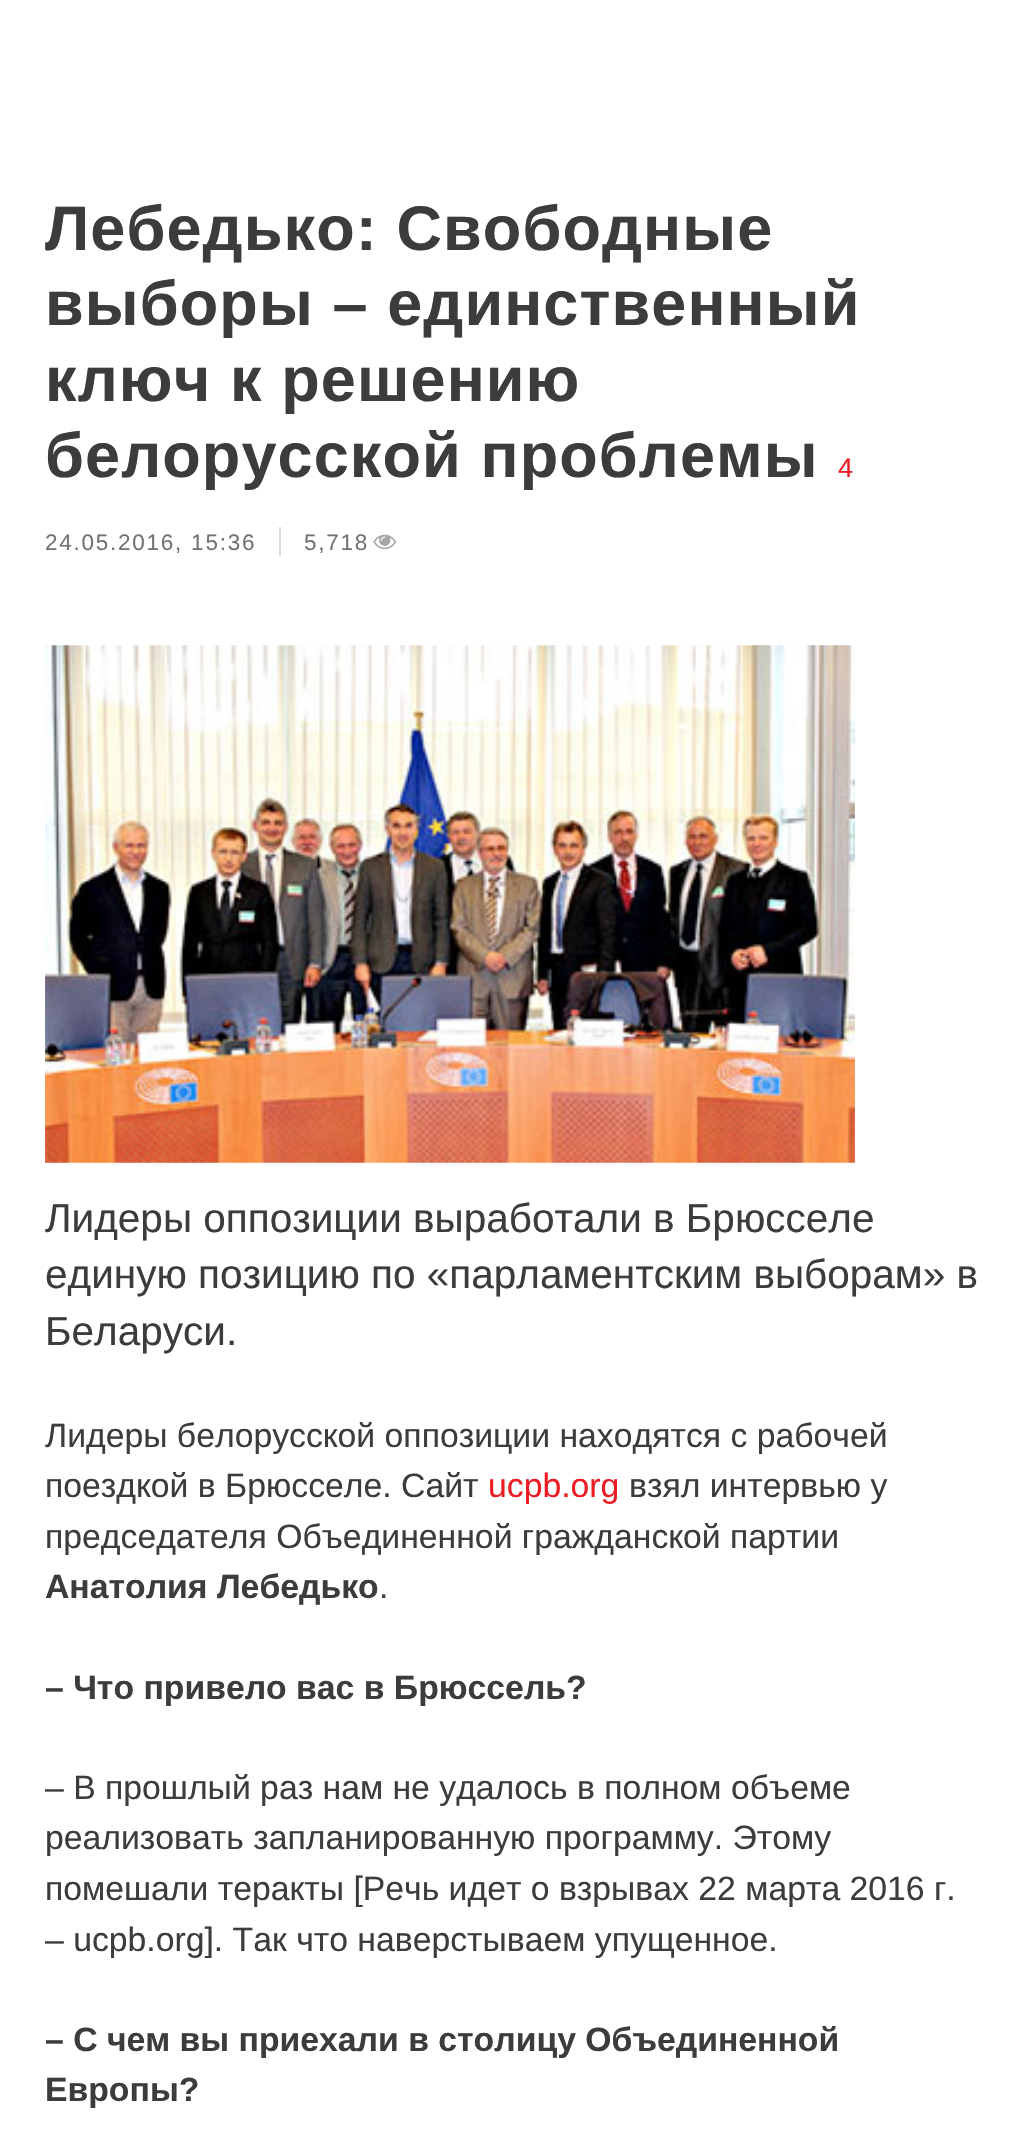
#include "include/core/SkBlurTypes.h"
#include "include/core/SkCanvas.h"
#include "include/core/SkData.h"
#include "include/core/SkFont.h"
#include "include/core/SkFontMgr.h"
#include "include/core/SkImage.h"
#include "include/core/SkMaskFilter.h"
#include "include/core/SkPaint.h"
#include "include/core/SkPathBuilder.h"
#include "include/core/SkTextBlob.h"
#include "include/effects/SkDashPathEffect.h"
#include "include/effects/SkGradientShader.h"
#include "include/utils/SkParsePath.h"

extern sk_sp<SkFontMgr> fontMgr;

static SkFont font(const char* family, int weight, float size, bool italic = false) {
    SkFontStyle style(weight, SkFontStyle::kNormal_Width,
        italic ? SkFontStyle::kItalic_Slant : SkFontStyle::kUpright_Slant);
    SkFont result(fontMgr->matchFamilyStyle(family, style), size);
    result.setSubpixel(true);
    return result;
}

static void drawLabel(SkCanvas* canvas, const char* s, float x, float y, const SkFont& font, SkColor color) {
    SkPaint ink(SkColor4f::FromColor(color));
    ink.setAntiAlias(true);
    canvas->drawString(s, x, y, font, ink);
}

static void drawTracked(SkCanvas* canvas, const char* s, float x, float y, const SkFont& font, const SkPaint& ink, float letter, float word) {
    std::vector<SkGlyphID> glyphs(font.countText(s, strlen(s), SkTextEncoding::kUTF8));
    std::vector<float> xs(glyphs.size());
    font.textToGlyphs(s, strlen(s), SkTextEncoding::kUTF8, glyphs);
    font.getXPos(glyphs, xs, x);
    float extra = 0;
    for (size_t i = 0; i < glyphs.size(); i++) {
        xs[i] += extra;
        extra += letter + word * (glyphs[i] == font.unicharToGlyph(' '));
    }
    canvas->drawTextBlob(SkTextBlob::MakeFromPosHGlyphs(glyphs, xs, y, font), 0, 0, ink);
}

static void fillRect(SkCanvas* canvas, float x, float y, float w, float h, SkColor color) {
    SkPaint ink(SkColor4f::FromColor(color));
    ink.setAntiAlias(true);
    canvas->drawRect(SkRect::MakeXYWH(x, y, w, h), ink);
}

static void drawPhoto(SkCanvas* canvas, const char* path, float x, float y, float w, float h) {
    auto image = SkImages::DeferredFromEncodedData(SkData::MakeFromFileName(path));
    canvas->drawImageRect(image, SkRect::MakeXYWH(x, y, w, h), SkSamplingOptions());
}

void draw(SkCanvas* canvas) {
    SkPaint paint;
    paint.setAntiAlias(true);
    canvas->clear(0xFFFFFFFF);
    SkFont font1 = font("Liberation Sans", 700, 63);
    paint.setColor(0xFF3C3C3C);
    drawTracked(canvas, "Лебедько: Свободные", 45, 250, font1, paint, 1.1f, 0);
    drawTracked(canvas, "выборы – единственный", 45, 325, font1, paint, 1.1f, 0);
    drawTracked(canvas, "ключ к решению", 45, 401, font1, paint, 1.1f, 0);
    drawTracked(canvas, "белорусской проблемы", 45, 477, font1, paint, 1.1f, 0);
    SkFont font2 = font("Liberation Sans", 400, 27);
    drawLabel(canvas, "4", 838, 477, font2, 0xFFED1C24);
    fillRect(canvas, 279, 527, 2, 29, 0xFFDCDCDC);
    SkFont font3 = font("Liberation Sans", 400, 22.5f);
    paint.setColor(0xFF737373);
    drawTracked(canvas, "24.05.2016, 15:36", 45, 550, font3, paint, 1.75f, 0);
    drawTracked(canvas, "5,718", 304, 550, font3, paint, 1.75f, 0);
    drawPhoto(canvas, "assets/img1.png", 373, 534, 23, 16);
    drawPhoto(canvas, "assets/img2.png", 45, 645, 810, 518);
    SkFont font4 = font("Liberation Sans", 400, 40.5f);
    drawLabel(canvas, "Лидеры оппозиции выработали в Брюсселе", 45, 1232, font4, 0xFF3C3C3C);
    drawLabel(canvas, "единую позицию по «парламентским выборам» в", 45, 1288, font4, 0xFF3C3C3C);
    drawLabel(canvas, "Беларуси.", 45, 1345, font4, 0xFF3C3C3C);
    SkFont font5 = font("Liberation Sans", 400, 33.75f);
    drawLabel(canvas, "Лидеры белорусской оппозиции находятся с рабочей", 45, 1447, font5, 0xFF3C3C3C);
    drawLabel(canvas, "поездкой в Брюсселе. Сайт", 45, 1497, font5, 0xFF3C3C3C);
    drawLabel(canvas, "ucpb.org", 488, 1497, font5, 0xFFED1C24);
    drawLabel(canvas, "взял интервью у", 629, 1497, font5, 0xFF3C3C3C);
    drawLabel(canvas, "председателя Объединенной гражданской партии", 45, 1548, font5, 0xFF3C3C3C);
    SkFont font6 = font("Liberation Sans", 700, 33.75f);
    drawLabel(canvas, "Анатолия Лебедько", 45, 1598, font6, 0xFF3C3C3C);
    drawLabel(canvas, ".", 379, 1598, font5, 0xFF3C3C3C);
    drawLabel(canvas, "– Что привело вас в Брюссель?", 45, 1699, font6, 0xFF3C3C3C);
    drawLabel(canvas, "– В прошлый раз нам не удалось в полном объеме", 45, 1799, font5, 0xFF3C3C3C);
    drawLabel(canvas, "реализовать запланированную программу. Этому", 45, 1849, font5, 0xFF3C3C3C);
    drawLabel(canvas, "помешали теракты [Речь идет о взрывах 22 марта 2016 г.", 45, 1900, font5, 0xFF3C3C3C);
    drawLabel(canvas, "– ucpb.org]. Так что наверстываем упущенное.", 45, 1951, font5, 0xFF3C3C3C);
    drawLabel(canvas, "– С чем вы приехали в столицу Объединенной", 45, 2051, font6, 0xFF3C3C3C);
    drawLabel(canvas, "Европы?", 45, 2101, font6, 0xFF3C3C3C);
}
